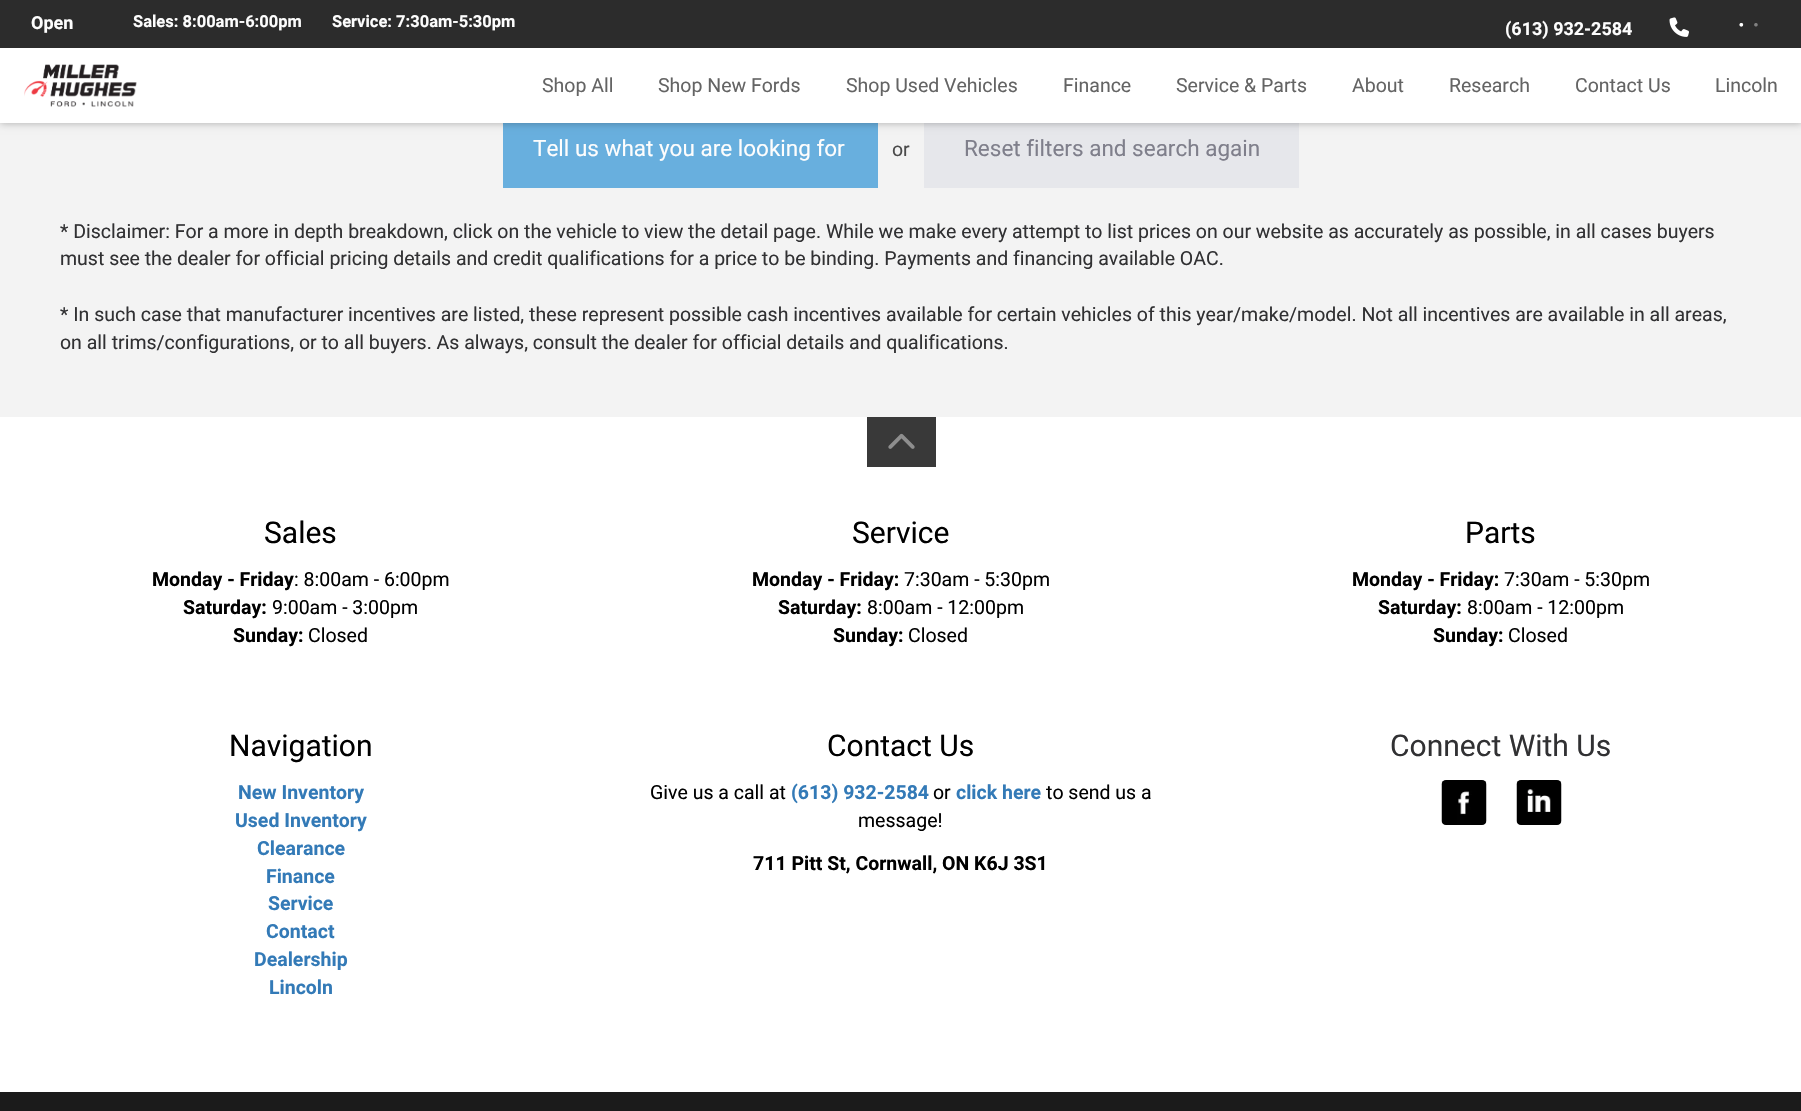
#include "include/core/SkBlurTypes.h"
#include "include/core/SkCanvas.h"
#include "include/core/SkData.h"
#include "include/core/SkFont.h"
#include "include/core/SkFontMgr.h"
#include "include/core/SkImage.h"
#include "include/core/SkMaskFilter.h"
#include "include/core/SkPaint.h"
#include "include/core/SkPathBuilder.h"
#include "include/core/SkTextBlob.h"
#include "include/effects/SkDashPathEffect.h"
#include "include/effects/SkGradientShader.h"
#include "include/utils/SkParsePath.h"

extern sk_sp<SkFontMgr> fontMgr;

static SkFont font(const char* family, int weight, float size, bool italic = false) {
    SkFontStyle style(weight, SkFontStyle::kNormal_Width,
        italic ? SkFontStyle::kItalic_Slant : SkFontStyle::kUpright_Slant);
    SkFont result(fontMgr->matchFamilyStyle(family, style), size);
    result.setSubpixel(true);
    return result;
}

static void drawLabel(SkCanvas* canvas, const char* s, float x, float y, const SkFont& font, SkColor color) {
    SkPaint ink(SkColor4f::FromColor(color));
    ink.setAntiAlias(true);
    canvas->drawString(s, x, y, font, ink);
}

static void fillRect(SkCanvas* canvas, float x, float y, float w, float h, SkColor color) {
    SkPaint ink(SkColor4f::FromColor(color));
    ink.setAntiAlias(true);
    canvas->drawRect(SkRect::MakeXYWH(x, y, w, h), ink);
}

static void drawPhoto(SkCanvas* canvas, const char* path, float x, float y, float w, float h) {
    auto image = SkImages::DeferredFromEncodedData(SkData::MakeFromFileName(path));
    canvas->drawImageRect(image, SkRect::MakeXYWH(x, y, w, h), SkSamplingOptions());
}

void draw(SkCanvas* canvas) {
    SkPaint paint;
    paint.setAntiAlias(true);
    canvas->clear(0xFFFFFFFF);
    fillRect(canvas, 0, 123, 1801, 294, 0xFFF3F3F3);
    fillRect(canvas, 503, 123, 375, 65, 0xFF68AFDE);
    fillRect(canvas, 924, 123, 375, 65, 0xFFE6E7EB);
    paint.setColor(0x4D000000);
    paint.setMaskFilter(SkMaskFilter::MakeBlur(kNormal_SkBlurStyle, 4));
    canvas->drawRect(SkRect::MakeXYWH(0, 0, 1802, 123), paint);
    paint.setMaskFilter(nullptr);
    fillRect(canvas, 0, 48, 1801, 75, 0xFFFFFFFF);
    fillRect(canvas, 0, 0, 1801, 48, 0xFF2C2C2C);
    SkFont font1 = font("Roboto", 700, 18);
    drawLabel(canvas, "Open", 31, 29, font1, 0xFFFDFDFD);
    SkFont font2 = font("Roboto", 700, 16.5f);
    drawLabel(canvas, "Sales: 8:00am-6:00pm", 133, 27, font2, 0xFFFDFDFD);
    drawLabel(canvas, "Service: 7:30am-5:30pm", 332, 27, font2, 0xFFFDFDFD);
    drawLabel(canvas, "(613) 932-2584", 1505, 35, font1, 0xFFFDFDFD);
    drawPhoto(canvas, "assets/img1.png", 1669, 17, 20, 20);
    drawPhoto(canvas, "assets/img2.png", 1739, 22, 5, 5);
    drawPhoto(canvas, "assets/img3.png", 1739, 23, 19, 4);
    drawPhoto(canvas, "assets/img4.png", 24, 64, 113, 43);
    SkFont font3 = font("Roboto", 400, 19.5f);
    drawLabel(canvas, "Shop All", 542, 92, font3, 0xFF646464);
    drawLabel(canvas, "Shop New Fords", 658, 92, font3, 0xFF646464);
    drawLabel(canvas, "Shop Used Vehicles", 846, 92, font3, 0xFF646464);
    drawLabel(canvas, "Finance", 1063, 92, font3, 0xFF646464);
    drawLabel(canvas, "Service & Parts", 1176, 92, font3, 0xFF646464);
    drawLabel(canvas, "About", 1352, 92, font3, 0xFF646464);
    drawLabel(canvas, "Research", 1449, 92, font3, 0xFF646464);
    drawLabel(canvas, "Contact Us", 1575, 92, font3, 0xFF646464);
    drawLabel(canvas, "Lincoln", 1715, 92, font3, 0xFF646464);
    SkFont font4 = font("Roboto", 400, 22.5f);
    drawLabel(canvas, "Tell us what you are looking for", 533, 156, font4, 0xFFFDFDFD);
    drawLabel(canvas, "or", 892, 156, font3, 0xFF4B4B4B);
    drawLabel(canvas, "Reset filters and search again", 964, 156, font4, 0xFF7F7F8B);
    drawLabel(canvas, "* Disclaimer: For a more in depth breakdown, click on the vehicle to view the detail page. While we make every attempt to list prices on our website as accurately as possible, in all cases buyers", 60, 238, font3, 0xFF313133);
    drawLabel(canvas, "must see the dealer for official pricing details and credit qualifications for a price to be binding. Payments and financing available OAC.", 60, 265, font3, 0xFF313133);
    drawLabel(canvas, "* In such case that manufacturer incentives are listed, these represent possible cash incentives available for certain vehicles of this year/make/model. Not all incentives are available in all areas,", 60, 321, font3, 0xFF313133);
    drawLabel(canvas, "on all trims/configurations, or to all buyers. As always, consult the dealer for official details and qualifications.", 60, 349, font3, 0xFF313133);
    fillRect(canvas, 867, 417, 69, 50, 0xFF393939);
    drawPhoto(canvas, "assets/img5.png", 888, 433, 27, 16);
    SkFont font5 = font("Roboto", 400, 30);
    drawLabel(canvas, "Sales", 264, 543, font5, 0xFF000000);
    SkFont font6 = font("Roboto", 700, 19.5f);
    drawLabel(canvas, "Monday - Friday", 152, 586, font6, 0xFF000000);
    drawLabel(canvas, ": 8:00am - 6:00pm", 294, 586, font3, 0xFF000000);
    drawLabel(canvas, "Saturday:", 183, 614, font6, 0xFF000000);
    drawLabel(canvas, "9:00am - 3:00pm", 272, 614, font3, 0xFF000000);
    drawLabel(canvas, "Sunday:", 233, 642, font6, 0xFF000000);
    drawLabel(canvas, "Closed", 308, 642, font3, 0xFF000000);
    drawLabel(canvas, "Service", 852, 543, font5, 0xFF000000);
    drawLabel(canvas, "Monday - Friday:", 752, 586, font6, 0xFF000000);
    drawLabel(canvas, "7:30am - 5:30pm", 904, 586, font3, 0xFF000000);
    drawLabel(canvas, "Saturday:", 778, 614, font6, 0xFF000000);
    drawLabel(canvas, "8:00am - 12:00pm", 867, 614, font3, 0xFF000000);
    drawLabel(canvas, "Sunday:", 833, 642, font6, 0xFF000000);
    drawLabel(canvas, "Closed", 908, 642, font3, 0xFF000000);
    drawLabel(canvas, "Parts", 1465, 543, font5, 0xFF000000);
    drawLabel(canvas, "Monday - Friday:", 1352, 586, font6, 0xFF000000);
    drawLabel(canvas, "7:30am - 5:30pm", 1504, 586, font3, 0xFF000000);
    drawLabel(canvas, "Saturday:", 1378, 614, font6, 0xFF000000);
    drawLabel(canvas, "8:00am - 12:00pm", 1467, 614, font3, 0xFF000000);
    drawLabel(canvas, "Sunday:", 1433, 642, font6, 0xFF000000);
    drawLabel(canvas, "Closed", 1508, 642, font3, 0xFF000000);
    drawLabel(canvas, "Navigation", 229, 756, font5, 0xFF000000);
    drawLabel(canvas, "New Inventory", 238, 799, font6, 0xFF337AB7);
    drawLabel(canvas, "Used Inventory", 235, 827, font6, 0xFF337AB7);
    drawLabel(canvas, "Clearance", 257, 855, font6, 0xFF337AB7);
    drawLabel(canvas, "Finance", 266, 883, font6, 0xFF337AB7);
    drawLabel(canvas, "Service", 268, 910, font6, 0xFF337AB7);
    drawLabel(canvas, "Contact", 266, 938, font6, 0xFF337AB7);
    drawLabel(canvas, "Dealership", 254, 966, font6, 0xFF337AB7);
    drawLabel(canvas, "Lincoln", 269, 994, font6, 0xFF337AB7);
    drawLabel(canvas, "Contact Us", 827, 756, font5, 0xFF000000);
    drawLabel(canvas, "Give us a call at", 650, 799, font3, 0xFF000000);
    drawLabel(canvas, "(613) 932-2584", 791, 799, font6, 0xFF337AB7);
    drawLabel(canvas, "or", 933, 799, font3, 0xFF000000);
    drawLabel(canvas, "click here", 956, 799, font6, 0xFF337AB7);
    drawLabel(canvas, "to send us a", 1046, 799, font3, 0xFF000000);
    drawLabel(canvas, "message!", 858, 827, font3, 0xFF000000);
    drawLabel(canvas, "711 Pitt St, Cornwall, ON K6J 3S1", 753, 870, font6, 0xFF000000);
    drawLabel(canvas, "Connect With Us", 1390, 756, font5, 0xFF313133);
    drawPhoto(canvas, "assets/img6.png", 1441, 780, 46, 45);
    drawPhoto(canvas, "assets/img7.png", 1516, 780, 46, 45);
    fillRect(canvas, 0, 1092, 1801, 19, 0xFF1B1B1B);
}
